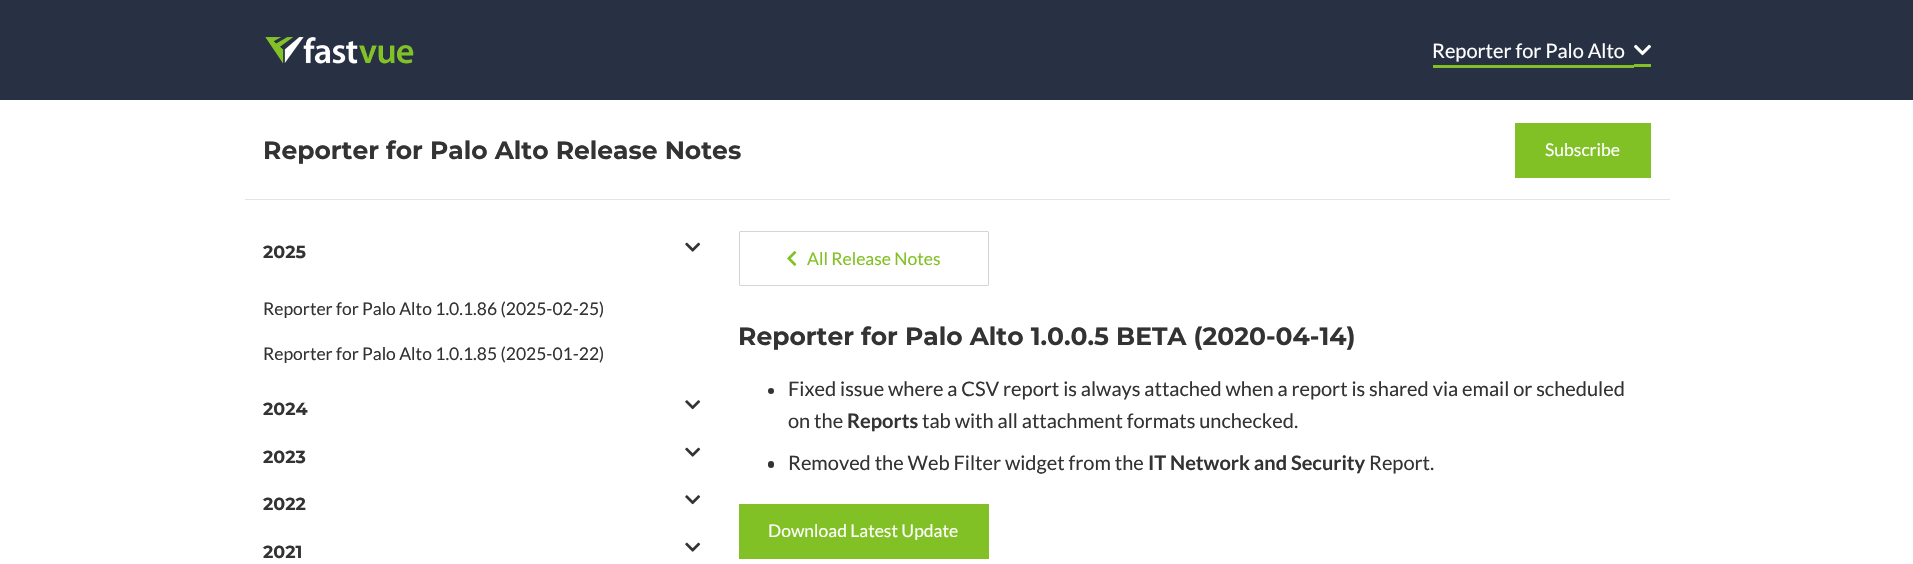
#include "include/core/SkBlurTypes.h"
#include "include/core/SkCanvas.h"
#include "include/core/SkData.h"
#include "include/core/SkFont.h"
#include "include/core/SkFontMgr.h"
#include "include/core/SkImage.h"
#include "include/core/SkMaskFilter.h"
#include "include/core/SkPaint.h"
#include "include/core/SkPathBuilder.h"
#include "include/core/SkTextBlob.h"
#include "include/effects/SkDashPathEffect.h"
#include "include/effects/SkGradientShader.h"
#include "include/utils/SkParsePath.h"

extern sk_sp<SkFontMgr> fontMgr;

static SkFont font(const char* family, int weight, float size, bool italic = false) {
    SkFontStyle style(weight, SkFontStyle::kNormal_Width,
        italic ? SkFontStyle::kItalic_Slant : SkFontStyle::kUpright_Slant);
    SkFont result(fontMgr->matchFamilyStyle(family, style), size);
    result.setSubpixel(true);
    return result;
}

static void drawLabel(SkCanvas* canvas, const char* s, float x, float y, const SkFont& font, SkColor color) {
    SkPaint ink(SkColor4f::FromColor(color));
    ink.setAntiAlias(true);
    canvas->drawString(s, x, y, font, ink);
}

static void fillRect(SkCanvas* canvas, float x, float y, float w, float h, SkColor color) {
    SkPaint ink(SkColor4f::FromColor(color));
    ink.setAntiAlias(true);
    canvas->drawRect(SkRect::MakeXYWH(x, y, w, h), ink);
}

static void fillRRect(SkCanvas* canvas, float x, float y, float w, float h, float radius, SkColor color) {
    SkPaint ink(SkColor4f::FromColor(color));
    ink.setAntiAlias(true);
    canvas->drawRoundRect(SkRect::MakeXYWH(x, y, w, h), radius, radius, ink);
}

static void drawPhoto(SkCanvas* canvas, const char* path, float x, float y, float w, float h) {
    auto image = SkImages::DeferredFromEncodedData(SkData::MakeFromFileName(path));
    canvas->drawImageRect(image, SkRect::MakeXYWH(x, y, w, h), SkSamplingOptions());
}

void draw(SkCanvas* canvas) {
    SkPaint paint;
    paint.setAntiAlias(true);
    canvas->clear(0xFFFFFFFF);
    fillRect(canvas, 0, 0, 1913, 100, 0xFF283144);
    drawPhoto(canvas, "assets/img1.png", 265, 37, 149, 27);
    fillRect(canvas, 1433, 65, 201, 3, 0xFF81C125);
    fillRect(canvas, 1634, 64, 17, 3, 0xFF81C125);
    SkFont font1 = font("Lato", 400, 20);
    drawLabel(canvas, "Reporter for Palo Alto", 1432, 58, font1, 0xFFFFFFFF);
    drawPhoto(canvas, "assets/img2.png", 1634, 44, 17, 12);
    fillRect(canvas, 245, 199, 1425, 1, 0xFFE4E4E4);
    SkFont font2 = font("Montserrat", 700, 25);
    drawLabel(canvas, "Reporter for Palo Alto Release Notes", 263, 159, font2, 0xFF333333);
    paint.setColor(0xFF81C125);
    canvas->drawRect(SkRect::MakeXYWH(1516.5f, 124.5f, 133, 52), paint);
    paint.setStroke(true);
    paint.setStrokeWidth(3);
    canvas->drawRect(SkRect::MakeXYWH(1516.5f, 124.5f, 133, 52), paint);
    SkFont font3 = font("Lato", 400, 17.5f);
    drawLabel(canvas, "Subscribe", 1545, 156, font3, 0xFFFFFFFF);
    SkFont font4 = font("Montserrat", 700, 17.5f);
    drawLabel(canvas, "2025", 263, 258, font4, 0xFF333333);
    drawPhoto(canvas, "assets/img3.png", 685, 242, 16, 10);
    drawLabel(canvas, "Reporter for Palo Alto 1.0.1.86 (2025-02-25)", 263, 315, font3, 0xFF333333);
    drawLabel(canvas, "Reporter for Palo Alto 1.0.1.85 (2025-01-22)", 263, 360, font3, 0xFF333333);
    drawLabel(canvas, "2024", 263, 415, font4, 0xFF333333);
    drawPhoto(canvas, "assets/img4.png", 685, 400, 16, 10);
    drawLabel(canvas, "2023", 263, 463, font4, 0xFF333333);
    drawPhoto(canvas, "assets/img3.png", 685, 447, 16, 10);
    drawLabel(canvas, "2022", 263, 510, font4, 0xFF333333);
    drawPhoto(canvas, "assets/img4.png", 685, 495, 16, 10);
    drawLabel(canvas, "2021", 263, 558, font4, 0xFF333333);
    drawPhoto(canvas, "assets/img3.png", 685, 542, 16, 10);
    paint.setStrokeWidth(1);
    paint.setColor(0xFFD4D4D4);
    canvas->drawRoundRect(SkRect::MakeXYWH(739.5f, 231.5f, 249, 54), 0.5f, 0.5f, paint);
    drawPhoto(canvas, "assets/img5.png", 787, 251, 10, 15);
    drawLabel(canvas, "All Release Notes", 807, 265, font3, 0xFF81C125);
    drawLabel(canvas, "Reporter for Palo Alto 1.0.0.5 BETA (2020-04-14)", 738, 345, font2, 0xFF333333);
    paint.setStroke(false);
    paint.setColor(0xFF333333);
    canvas->drawCircle(771, 391, 3, paint);
    drawLabel(canvas, "Fixed issue where a CSV report is always attached when a report is shared via email or scheduled", 788, 396, font1, 0xFF333333);
    drawLabel(canvas, "on the", 788, 428, font1, 0xFF333333);
    SkFont font5 = font("Lato", 700, 20);
    drawLabel(canvas, "Reports", 847, 428, font5, 0xFF333333);
    drawLabel(canvas, "tab with all attachment formats unchecked.", 922, 428, font1, 0xFF333333);
    fillRRect(canvas, 768, 461, 6, 7, 3, 0xFF333333);
    drawLabel(canvas, "Removed the Web Filter widget from the", 788, 470, font1, 0xFF333333);
    drawLabel(canvas, "IT Network and Security", 1148, 470, font5, 0xFF333333);
    drawLabel(canvas, "Report.", 1369, 470, font1, 0xFF333333);
    paint.setColor(0xFF81C125);
    canvas->drawRect(SkRect::MakeXYWH(740.5f, 505.5f, 247, 52), paint);
    paint.setStroke(true);
    paint.setStrokeWidth(3);
    canvas->drawRect(SkRect::MakeXYWH(740.5f, 505.5f, 247, 52), paint);
    drawLabel(canvas, "Download Latest Update", 768, 537, font3, 0xFFFFFFFF);
}
